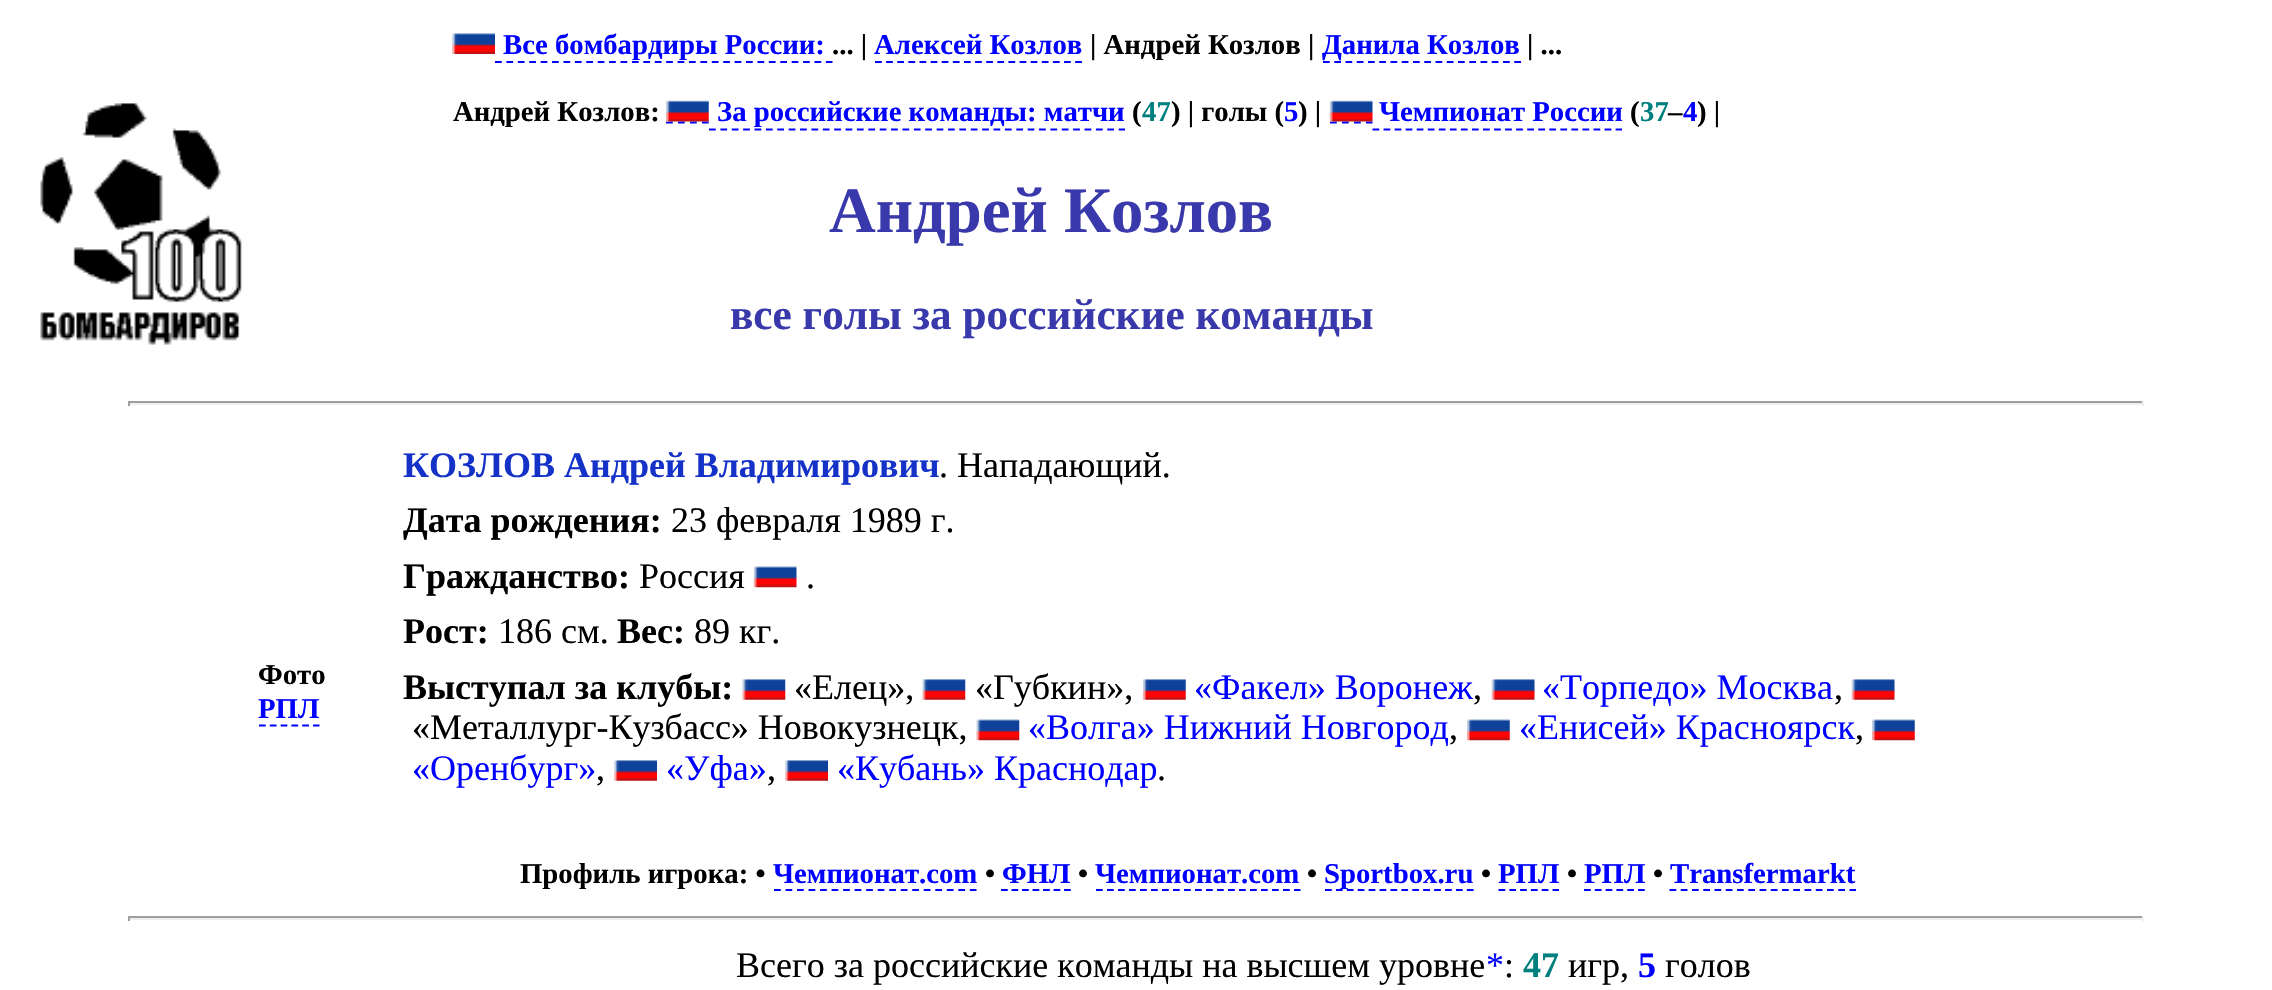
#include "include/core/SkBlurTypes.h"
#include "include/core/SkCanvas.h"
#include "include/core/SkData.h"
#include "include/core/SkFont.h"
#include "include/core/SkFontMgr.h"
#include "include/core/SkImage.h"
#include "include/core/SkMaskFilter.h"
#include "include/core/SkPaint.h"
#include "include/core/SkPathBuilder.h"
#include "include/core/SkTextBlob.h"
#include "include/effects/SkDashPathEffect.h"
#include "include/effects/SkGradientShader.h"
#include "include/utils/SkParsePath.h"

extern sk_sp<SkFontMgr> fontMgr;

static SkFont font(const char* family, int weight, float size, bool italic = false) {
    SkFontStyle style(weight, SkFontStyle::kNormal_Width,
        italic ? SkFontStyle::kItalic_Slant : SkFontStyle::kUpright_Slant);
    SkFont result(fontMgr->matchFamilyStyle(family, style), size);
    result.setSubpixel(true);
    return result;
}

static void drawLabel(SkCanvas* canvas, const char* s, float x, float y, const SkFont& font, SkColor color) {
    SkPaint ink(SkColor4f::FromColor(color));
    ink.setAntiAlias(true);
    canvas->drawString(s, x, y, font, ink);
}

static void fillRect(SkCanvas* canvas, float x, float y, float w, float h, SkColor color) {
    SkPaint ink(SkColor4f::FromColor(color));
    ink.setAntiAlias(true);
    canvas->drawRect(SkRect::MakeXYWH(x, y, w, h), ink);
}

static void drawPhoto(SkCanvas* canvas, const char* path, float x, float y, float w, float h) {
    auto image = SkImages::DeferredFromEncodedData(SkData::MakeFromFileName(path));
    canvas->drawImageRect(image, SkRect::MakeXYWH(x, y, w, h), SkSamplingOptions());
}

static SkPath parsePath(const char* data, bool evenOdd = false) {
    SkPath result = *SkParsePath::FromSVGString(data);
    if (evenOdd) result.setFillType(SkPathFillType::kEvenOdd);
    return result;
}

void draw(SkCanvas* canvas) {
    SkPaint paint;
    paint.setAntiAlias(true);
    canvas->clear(0xFFFFFFFF);
    drawPhoto(canvas, "assets/img1.png", 40, 103, 202, 242);
    drawPhoto(canvas, "assets/img2.png", 452, 33, 43, 21);
    paint.setStroke(true);
    paint.setStrokeWidth(2.2f);
    paint.setColor(0xFF0000FF);
    paint.setPathEffect(SkDashPathEffect::Make({{6.75f, 4.66f}}, 0));
    canvas->drawPath(parsePath("M495 62H832.5"), paint);
    paint.setPathEffect(nullptr);
    SkFont font1 = font("Liberation Serif", 700, 28.75f);
    drawLabel(canvas, "Все бомбардиры России:", 503, 54, font1, 0xFF0000FF);
    drawLabel(canvas, "... |", 832, 54, font1, 0xFF000000);
    drawLabel(canvas, "Алексей Козлов", 874, 54, font1, 0xFF0000FF);
    paint.setPathEffect(SkDashPathEffect::Make({{6.75f, 4.37f}}, 0));
    canvas->drawPath(parsePath("M875 62H1082"), paint);
    paint.setPathEffect(nullptr);
    drawLabel(canvas, "| Андрей Козлов |", 1090, 54, font1, 0xFF000000);
    paint.setPathEffect(SkDashPathEffect::Make({{6.75f, 4.5f}}, 0));
    canvas->drawPath(parsePath("M1323 62H1521"), paint);
    paint.setPathEffect(nullptr);
    drawLabel(canvas, "Данила Козлов", 1322, 54, font1, 0xFF0000FF);
    drawLabel(canvas, "| ...", 1527, 54, font1, 0xFF000000);
    drawLabel(canvas, "Андрей Козлов:", 453, 121, font1, 0xFF000000);
    paint.setPathEffect(SkDashPathEffect::Make({{6.75f, 5.24f}}, 0));
    canvas->drawPath(parsePath("M666 122.5H709"), paint);
    paint.setPathEffect(nullptr);
    drawPhoto(canvas, "assets/img3.png", 666, 100, 43, 22);
    drawLabel(canvas, "За российские команды: матчи", 717, 121, font1, 0xFF0000FF);
    paint.setPathEffect(SkDashPathEffect::Make({{6.75f, 4.63f}}, 0));
    canvas->drawPath(parsePath("M709 129.5H1125"), paint);
    paint.setPathEffect(nullptr);
    drawLabel(canvas, "(", 1132, 121, font1, 0xFF000000);
    drawLabel(canvas, "47", 1142, 121, font1, 0xFF007F7F);
    drawLabel(canvas, ") | голы (", 1171, 121, font1, 0xFF000000);
    drawLabel(canvas, "5", 1284, 121, font1, 0xFF0000FF);
    drawLabel(canvas, ") |", 1298, 121, font1, 0xFF000000);
    paint.setPathEffect(SkDashPathEffect::Make({{6.75f, 5.24f}}, 0));
    canvas->drawPath(parsePath("M1330 122.5H1372.5"), paint);
    paint.setPathEffect(nullptr);
    drawPhoto(canvas, "assets/img4.png", 1329, 100, 44, 22);
    drawLabel(canvas, "Чемпионат России", 1379, 121, font1, 0xFF0000FF);
    paint.setPathEffect(SkDashPathEffect::Make({{6.75f, 4.3f}}, 0));
    canvas->drawPath(parsePath("M1372.5 129.5H1622"), paint);
    paint.setPathEffect(nullptr);
    drawLabel(canvas, "(", 1630, 121, font1, 0xFF000000);
    drawLabel(canvas, "37", 1640, 121, font1, 0xFF007F7F);
    drawLabel(canvas, "–", 1668, 121, font1, 0xFF000000);
    drawLabel(canvas, "4", 1683, 121, font1, 0xFF0000FF);
    drawLabel(canvas, ") |", 1697, 121, font1, 0xFF000000);
    SkFont font2 = font("Liberation Serif", 700, 64.75f);
    drawLabel(canvas, "Андрей Козлов", 829, 232, font2, 0xFF3939AC);
    SkFont font3 = font("Liberation Serif", 700, 43.25f);
    drawLabel(canvas, "все голы за российские команды", 730, 329, font3, 0xFF3939AC);
    fillRect(canvas, 128, 401, 2016, 2, 0xFF9F9F9F);
    fillRect(canvas, 2142, 401, 2, 5, 0xFFEEEEEE);
    fillRect(canvas, 128, 403, 2016, 2, 0xFFEEEEEE);
    fillRect(canvas, 128, 401, 2, 5, 0xFF9F9F9F);
    drawLabel(canvas, "Фото", 258, 684, font1, 0xFF000000);
    drawLabel(canvas, "РПЛ", 258, 718, font1, 0xFF0000FF);
    paint.setPathEffect(SkDashPathEffect::Make({{6.75f, 4.05f}}, 0));
    canvas->drawPath(parsePath("M259 725.5H319.5"), paint);
    paint.setPathEffect(nullptr);
    SkFont font4 = font("Liberation Serif", 700, 36);
    drawLabel(canvas, "КОЗЛОВ Андрей Владимирович", 403, 477, font4, 0xFF1432C8);
    SkFont font5 = font("Liberation Serif", 400, 36);
    drawLabel(canvas, ". Нападающий.", 939, 477, font5, 0xFF000000);
    drawLabel(canvas, "Дата рождения:", 403, 532, font4, 0xFF000000);
    drawLabel(canvas, "23 февраля 1989 г.", 671, 532, font5, 0xFF000000);
    drawLabel(canvas, "Гражданство:", 403, 588, font4, 0xFF000000);
    drawLabel(canvas, "Россия", 639, 588, font5, 0xFF000000);
    drawPhoto(canvas, "assets/img5.png", 753, 566, 44, 22);
    drawLabel(canvas, ".", 806, 588, font5, 0xFF000000);
    drawLabel(canvas, "Рост:", 403, 643, font4, 0xFF000000);
    drawLabel(canvas, "186 см.", 498, 643, font5, 0xFF000000);
    drawLabel(canvas, "Вес:", 617, 643, font4, 0xFF000000);
    drawLabel(canvas, "89 кг.", 694, 643, font5, 0xFF000000);
    drawLabel(canvas, "Выступал за клубы:", 403, 699, font4, 0xFF000000);
    drawPhoto(canvas, "assets/img6.png", 742, 679, 44, 21);
    drawLabel(canvas, "«Елец»,", 794, 699, font5, 0xFF000000);
    drawPhoto(canvas, "assets/img6.png", 922, 679, 44, 21);
    drawLabel(canvas, "«Губкин»,", 975, 699, font5, 0xFF000000);
    drawPhoto(canvas, "assets/img7.png", 1143, 679, 43, 21);
    drawLabel(canvas, "«Факел» Воронеж", 1194, 699, font5, 0xFF0000FF);
    drawLabel(canvas, ",", 1473, 699, font5, 0xFF000000);
    drawPhoto(canvas, "assets/img8.png", 1491, 679, 44, 21);
    drawLabel(canvas, "«Торпедо» Москва", 1542, 699, font5, 0xFF0000FF);
    drawLabel(canvas, ",", 1834, 699, font5, 0xFF000000);
    drawPhoto(canvas, "assets/img8.png", 1851, 679, 44, 21);
    drawLabel(canvas, "«Металлург-Кузбасс» Новокузнецк,", 412, 739, font5, 0xFF000000);
    drawPhoto(canvas, "assets/img9.png", 976, 719, 44, 22);
    drawLabel(canvas, "«Волга» Нижний Новгород", 1028, 739, font5, 0xFF0000FF);
    drawLabel(canvas, ",", 1449, 739, font5, 0xFF000000);
    drawPhoto(canvas, "assets/img10.png", 1467, 719, 43, 22);
    drawLabel(canvas, "«Енисей» Красноярск", 1519, 739, font5, 0xFF0000FF);
    drawLabel(canvas, ",", 1855, 739, font5, 0xFF000000);
    drawPhoto(canvas, "assets/img10.png", 1872, 719, 43, 22);
    drawLabel(canvas, "«Оренбург»", 412, 780, font5, 0xFF0000FF);
    drawLabel(canvas, ",", 596, 780, font5, 0xFF000000);
    drawPhoto(canvas, "assets/img11.png", 614, 760, 43, 21);
    drawLabel(canvas, "«Уфа»", 666, 780, font5, 0xFF0000FF);
    drawLabel(canvas, ",", 767, 780, font5, 0xFF000000);
    drawPhoto(canvas, "assets/img11.png", 785, 760, 43, 21);
    drawLabel(canvas, "«Кубань» Краснодар", 837, 780, font5, 0xFF0000FF);
    drawLabel(canvas, ".", 1157, 780, font5, 0xFF000000);
    drawLabel(canvas, "Профиль игрока: •", 520, 883, font1, 0xFF000000);
    drawLabel(canvas, "Чемпионат.com", 773, 883, font1, 0xFF0000FF);
    paint.setPathEffect(SkDashPathEffect::Make({{6.75f, 4.77f}}, 0));
    canvas->drawPath(parsePath("M774 890H976.5"), paint);
    paint.setPathEffect(nullptr);
    drawLabel(canvas, "•", 985, 883, font1, 0xFF000000);
    drawLabel(canvas, "ФНЛ", 1002, 883, font1, 0xFF0000FF);
    paint.setPathEffect(SkDashPathEffect::Make({{6.75f, 3.76f}}, 0));
    canvas->drawPath(parsePath("M1001 890H1071"), paint);
    paint.setPathEffect(nullptr);
    drawLabel(canvas, "•", 1078, 883, font1, 0xFF000000);
    drawLabel(canvas, "Чемпионат.com", 1095, 883, font1, 0xFF0000FF);
    paint.setPathEffect(SkDashPathEffect::Make({{6.75f, 4.25f}}, 0));
    canvas->drawPath(parsePath("M1096 890H1300.5"), paint);
    paint.setPathEffect(nullptr);
    drawLabel(canvas, "•", 1307, 883, font1, 0xFF000000);
    paint.setPathEffect(SkDashPathEffect::Make({{6.75f, 4.16f}}, 0));
    canvas->drawPath(parsePath("M1325 890H1474"), paint);
    paint.setPathEffect(nullptr);
    drawLabel(canvas, "Sportbox.ru", 1324, 883, font1, 0xFF0000FF);
    drawLabel(canvas, "•", 1481, 883, font1, 0xFF000000);
    drawLabel(canvas, "РПЛ", 1498, 883, font1, 0xFF0000FF);
    paint.setPathEffect(SkDashPathEffect::Make({{6.75f, 4.05f}}, 0));
    canvas->drawPath(parsePath("M1498.5 890H1559"), paint);
    paint.setPathEffect(nullptr);
    drawLabel(canvas, "•", 1567, 883, font1, 0xFF000000);
    drawLabel(canvas, "РПЛ", 1584, 883, font1, 0xFF0000FF);
    paint.setPathEffect(SkDashPathEffect::Make({{6.75f, 4.05f}}, 0));
    canvas->drawPath(parsePath("M1584 890H1645"), paint);
    paint.setPathEffect(nullptr);
    drawLabel(canvas, "•", 1653, 883, font1, 0xFF000000);
    drawLabel(canvas, "Transfermarkt", 1670, 883, font1, 0xFF0000FF);
    paint.setPathEffect(SkDashPathEffect::Make({{6.75f, 4.5f}}, 0));
    canvas->drawPath(parsePath("M1669.5 890H1856"), paint);
    paint.setPathEffect(nullptr);
    fillRect(canvas, 128, 916, 2016, 2, 0xFF9F9F9F);
    fillRect(canvas, 2142, 916, 2, 5, 0xFFEEEEEE);
    fillRect(canvas, 128, 918, 2016, 2, 0xFFEEEEEE);
    fillRect(canvas, 128, 916, 2, 5, 0xFF9F9F9F);
    drawLabel(canvas, "Всего за российские команды на высшем уровне", 736, 977, font5, 0xFF000000);
    drawLabel(canvas, "*", 1486, 977, font5, 0xFF0000FF);
    drawLabel(canvas, ":", 1504, 977, font5, 0xFF000000);
    drawLabel(canvas, "47", 1523, 977, font4, 0xFF007F7F);
    drawLabel(canvas, "игр,", 1568, 977, font5, 0xFF000000);
    drawLabel(canvas, "5", 1638, 977, font4, 0xFF0000FF);
    drawLabel(canvas, "голов", 1665, 977, font5, 0xFF000000);
}
